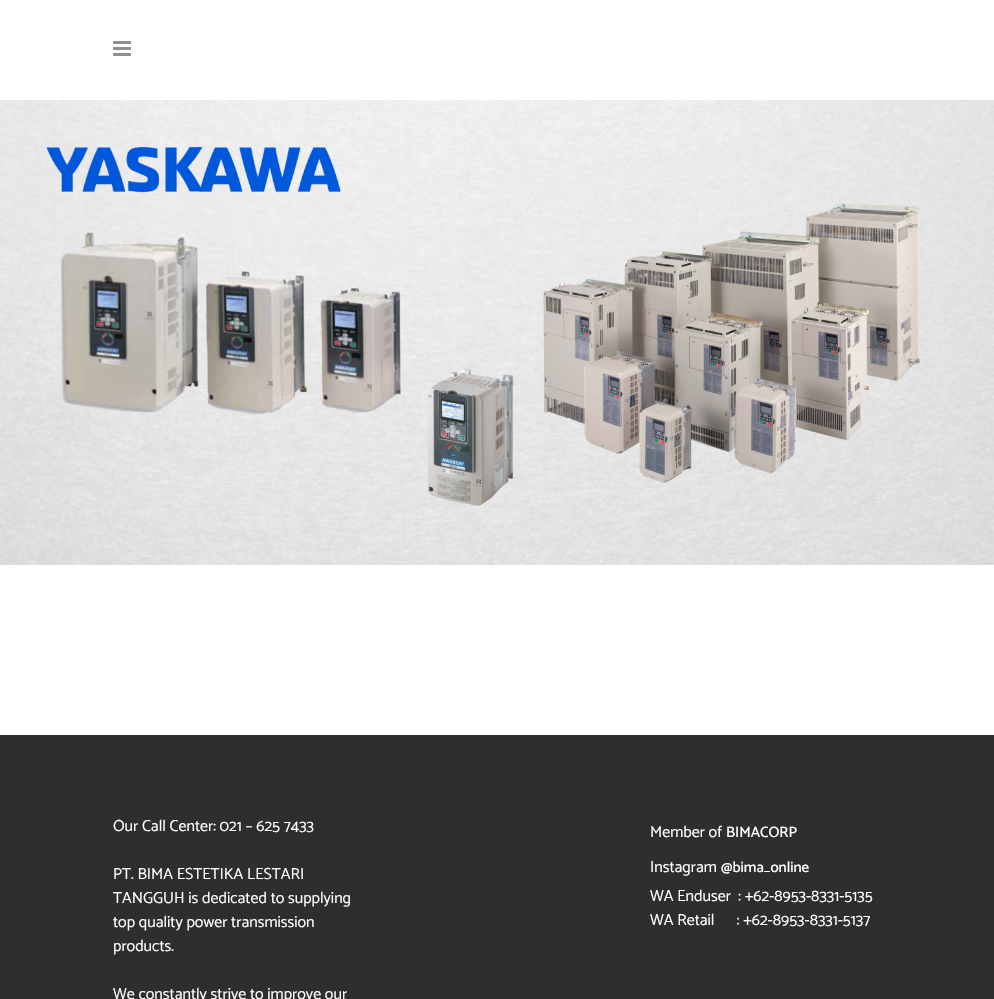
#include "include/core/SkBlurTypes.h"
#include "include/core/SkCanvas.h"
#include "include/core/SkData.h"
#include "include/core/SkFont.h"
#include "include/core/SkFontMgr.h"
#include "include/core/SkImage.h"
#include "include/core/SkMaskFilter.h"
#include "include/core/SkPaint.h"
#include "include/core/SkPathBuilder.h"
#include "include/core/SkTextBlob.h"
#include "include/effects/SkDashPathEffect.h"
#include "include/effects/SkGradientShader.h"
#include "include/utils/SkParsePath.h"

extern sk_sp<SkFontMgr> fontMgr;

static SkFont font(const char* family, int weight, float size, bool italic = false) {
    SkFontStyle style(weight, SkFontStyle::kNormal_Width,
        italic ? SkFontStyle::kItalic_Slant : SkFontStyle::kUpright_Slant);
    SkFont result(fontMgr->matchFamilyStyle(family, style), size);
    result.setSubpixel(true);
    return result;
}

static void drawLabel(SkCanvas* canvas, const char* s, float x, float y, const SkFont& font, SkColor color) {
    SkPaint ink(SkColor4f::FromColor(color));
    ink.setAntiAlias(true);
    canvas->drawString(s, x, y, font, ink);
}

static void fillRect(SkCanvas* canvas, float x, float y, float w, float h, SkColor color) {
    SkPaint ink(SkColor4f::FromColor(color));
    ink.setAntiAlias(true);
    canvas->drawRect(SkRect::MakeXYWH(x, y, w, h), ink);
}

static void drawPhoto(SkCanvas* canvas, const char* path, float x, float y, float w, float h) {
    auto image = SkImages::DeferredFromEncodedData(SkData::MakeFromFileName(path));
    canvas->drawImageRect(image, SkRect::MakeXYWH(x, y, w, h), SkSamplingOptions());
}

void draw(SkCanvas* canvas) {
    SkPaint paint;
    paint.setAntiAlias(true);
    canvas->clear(0xFFFFFFFF);
    drawPhoto(canvas, "assets/img1.png", 113, 41, 18, 15);
    drawPhoto(canvas, "assets/img2.png", 0, 100, 994, 465);
    fillRect(canvas, 0, 735, 994, 264, 0xFF2E2E2E);
    SkFont font1 = font("Catamaran", 400, 16);
    drawLabel(canvas, "Our Call Center: 021 – 625 7433", 113, 831, font1, 0xFFFFFFFF);
    drawLabel(canvas, "PT. BIMA ESTETIKA LESTARI", 113, 879, font1, 0xFFFFFFFF);
    drawLabel(canvas, "TANGGUH is dedicated to supplying", 113, 903, font1, 0xFFFFFFFF);
    drawLabel(canvas, "top quality power transmission", 113, 927, font1, 0xFFFFFFFF);
    drawLabel(canvas, "products.", 113, 951, font1, 0xFFFFFFFF);
    drawLabel(canvas, "We constantly strive to improve our", 113, 999, font1, 0xFFFFFFFF);
    drawLabel(canvas, "Member of", 650, 837, font1, 0xFFFFFFFF);
    SkFont font2 = font("Catamaran", 500, 15);
    drawLabel(canvas, "BIMACORP", 726, 837, font2, 0xFFFFFFFF);
    drawLabel(canvas, "Instagram", 650, 872, font1, 0xFFFFFFFF);
    drawLabel(canvas, "@bima_online", 721, 872, font2, 0xFFFFFFFF);
    drawLabel(canvas, "WA Enduser  : +62-8953-8331-5135", 650, 901, font1, 0xFFFFFFFF);
    drawLabel(canvas, "WA Retail      : +62-8953-8331-5137", 650, 925, font1, 0xFFFFFFFF);
}
